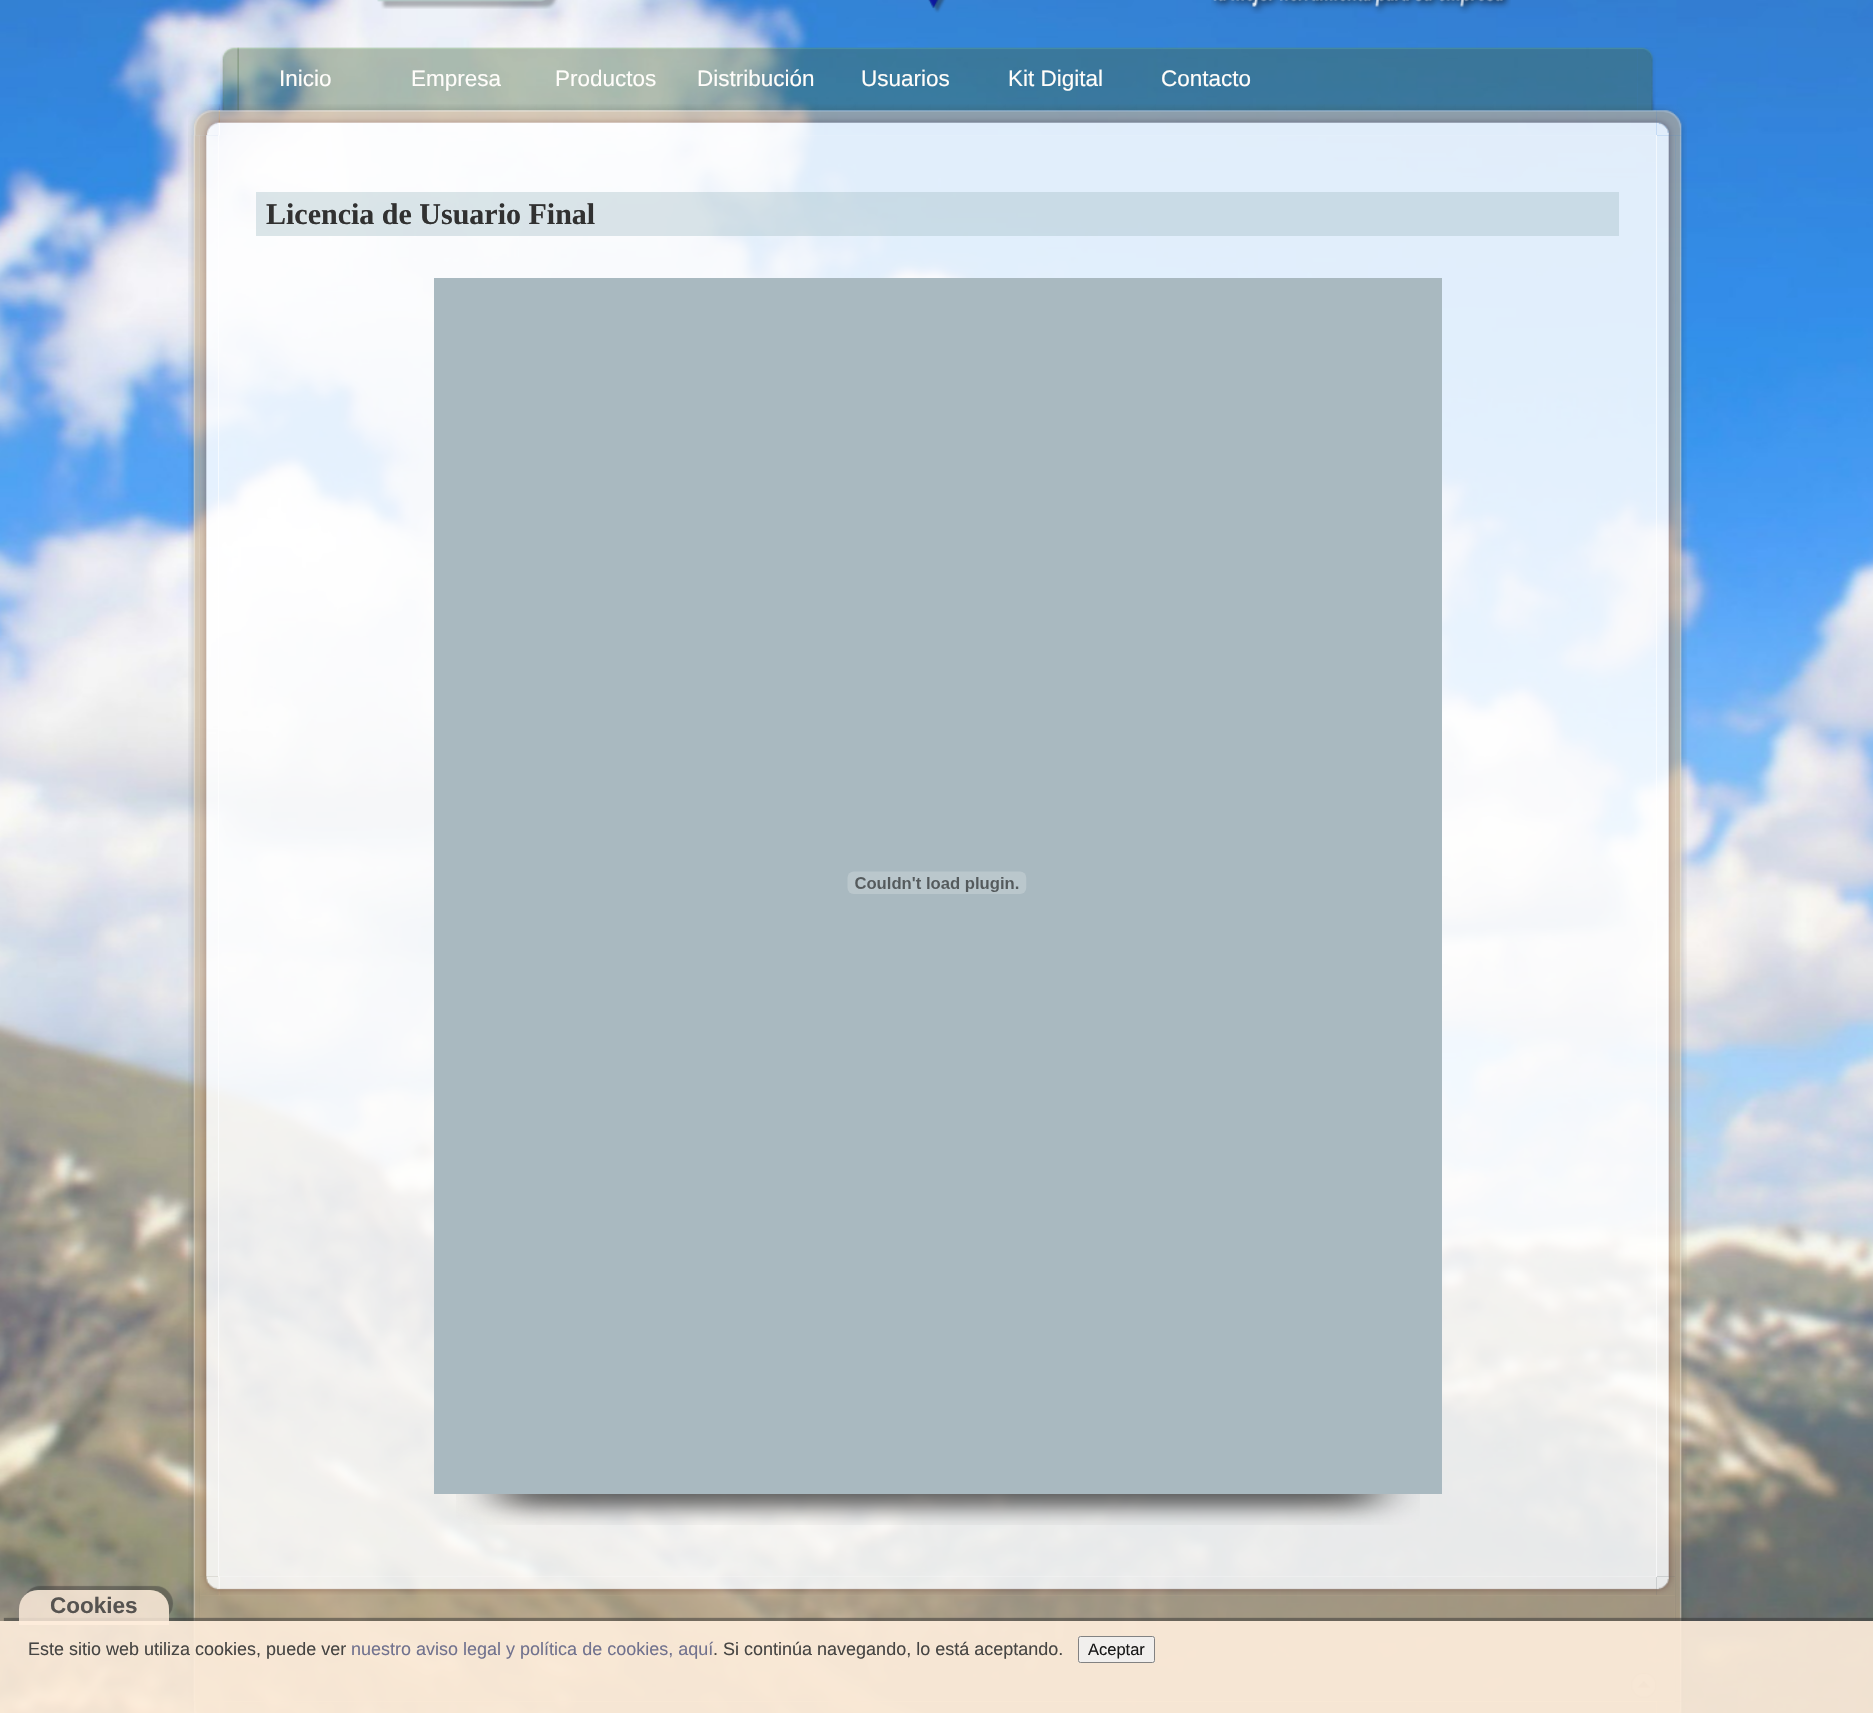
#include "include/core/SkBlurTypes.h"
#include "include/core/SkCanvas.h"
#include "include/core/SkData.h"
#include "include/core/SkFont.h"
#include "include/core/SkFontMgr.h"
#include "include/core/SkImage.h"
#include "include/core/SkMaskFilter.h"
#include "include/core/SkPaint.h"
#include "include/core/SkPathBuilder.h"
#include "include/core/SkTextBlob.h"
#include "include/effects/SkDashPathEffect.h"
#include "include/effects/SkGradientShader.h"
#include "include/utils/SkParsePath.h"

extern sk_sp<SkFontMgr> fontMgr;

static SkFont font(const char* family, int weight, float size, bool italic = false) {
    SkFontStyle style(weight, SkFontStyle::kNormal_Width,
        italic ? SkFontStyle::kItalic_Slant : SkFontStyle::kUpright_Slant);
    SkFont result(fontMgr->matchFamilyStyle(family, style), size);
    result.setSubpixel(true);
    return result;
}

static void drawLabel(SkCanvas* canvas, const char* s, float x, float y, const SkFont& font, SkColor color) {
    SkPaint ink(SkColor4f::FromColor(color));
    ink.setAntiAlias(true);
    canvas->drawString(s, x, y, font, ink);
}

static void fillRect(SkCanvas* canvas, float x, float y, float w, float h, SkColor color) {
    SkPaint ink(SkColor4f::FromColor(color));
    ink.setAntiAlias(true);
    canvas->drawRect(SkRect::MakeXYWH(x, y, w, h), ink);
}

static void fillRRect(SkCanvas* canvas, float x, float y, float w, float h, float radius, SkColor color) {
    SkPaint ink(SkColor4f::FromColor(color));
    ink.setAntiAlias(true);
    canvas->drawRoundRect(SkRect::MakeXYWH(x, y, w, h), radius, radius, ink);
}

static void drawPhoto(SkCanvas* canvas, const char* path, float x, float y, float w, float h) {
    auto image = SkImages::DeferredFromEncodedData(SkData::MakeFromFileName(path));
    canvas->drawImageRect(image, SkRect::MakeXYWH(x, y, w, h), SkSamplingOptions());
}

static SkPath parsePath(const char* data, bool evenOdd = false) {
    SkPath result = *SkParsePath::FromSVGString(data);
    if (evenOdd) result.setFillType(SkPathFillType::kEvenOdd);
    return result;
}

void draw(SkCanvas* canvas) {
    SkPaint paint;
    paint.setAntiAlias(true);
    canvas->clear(0xFFFFFFFF);
    drawPhoto(canvas, "assets/img1.png", 0, 0, 1873, 1713);
    drawPhoto(canvas, "assets/img2.png", 377, 0, 181, 9);
    drawPhoto(canvas, "assets/img3.png", 928, 0, 18, 13);
    drawPhoto(canvas, "assets/img4.png", 1211, 0, 300, 14);
    drawPhoto(canvas, "assets/img8.png", 188, 104, 32, 32);
    drawPhoto(canvas, "assets/img9.png", 1656, 104, 31, 32);
    drawPhoto(canvas, "assets/img10.png", 218, 104, 1439, 32);
    drawPhoto(canvas, "assets/img5.png", 220, 47, 19, 64);
    drawPhoto(canvas, "assets/img6.png", 1637, 47, 19, 64);
    drawPhoto(canvas, "assets/img7.png", 237, 47, 1401, 64);
    SkFont font1 = font("Liberation Sans", 400, 22.5f);
    drawLabel(canvas, "Inicio", 279, 86, font1, 0xFFFFFDFA);
    drawLabel(canvas, "Empresa", 411, 86, font1, 0xFFFFFDFA);
    drawLabel(canvas, "Productos", 555, 86, font1, 0xFFFFFDFA);
    drawLabel(canvas, "Distribución", 697, 86, font1, 0xFFFFFDFA);
    drawLabel(canvas, "Usuarios", 861, 86, font1, 0xFFFFFDFA);
    drawLabel(canvas, "Kit Digital", 1008, 86, font1, 0xFFFFFDFA);
    drawLabel(canvas, "Contacto", 1161, 86, font1, 0xFFFFFDFA);
    drawPhoto(canvas, "assets/img11.png", 188, 135, 13, 1567);
    drawPhoto(canvas, "assets/img12.png", 1674, 135, 13, 1567);
    drawPhoto(canvas, "assets/img13.png", 200, 135, 19, 1442);
    drawPhoto(canvas, "assets/img14.png", 1656, 135, 19, 1442);
    drawPhoto(canvas, "assets/img17.png", 200, 1576, 20, 20);
    drawPhoto(canvas, "assets/img18.png", 1656, 1576, 19, 20);
    drawPhoto(canvas, "assets/img19.png", 218, 1576, 1439, 20);
    fillRect(canvas, 218, 135, 1439, 1442, 0xD9FFFFFF);
    fillRect(canvas, 256, 192, 1363, 44, 0x61A4BEC6);
    SkFont font2 = font("Liberation Serif", 700, 30);
    drawLabel(canvas, "Licencia de Usuario Final", 266, 224, font2, 0xFF313131);
    fillRect(canvas, 434, 278, 1008, 1216, 0xFFA9B9C0);
    drawPhoto(canvas, "assets/img15.png", 847, 871, 180, 23);
    drawPhoto(canvas, "assets/img16.png", 456, 1494, 964, 31);
    drawPhoto(canvas, "assets/img21.png", 188, 1701, 32, 12);
    drawPhoto(canvas, "assets/img22.png", 1656, 1701, 29, 12);
    fillRect(canvas, 219, 1701, 1438, 12, 0x9EC3AD8C);
    fillRect(canvas, 200, 1595, 1475, 107, 0x9EC3AD8C);
    drawPhoto(canvas, "assets/img20.png", 1631, 1672, 26, 26);
    canvas->save();
    canvas->clipPath(parsePath("M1 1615H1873V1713H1ZM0 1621H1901V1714H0Z", true), true);
    paint.setColor(0x80323232);
    paint.setMaskFilter(SkMaskFilter::MakeBlur(kNormal_SkBlurStyle, 0.5f));
    canvas->drawRect(SkRect::MakeXYWH(4, 1618, 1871, 92), paint);
    paint.setMaskFilter(nullptr);
    canvas->restore();
    fillRect(canvas, 0, 1621, 1873, 92, 0xE6FFEEDD);
    canvas->save();
    canvas->clipPath(parsePath("M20 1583H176V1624H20ZM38 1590H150C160.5 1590 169 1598.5 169 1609V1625H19V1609C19 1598.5 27.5 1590 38 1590Z", true), true);
    paint.setColor(0x73323232);
    paint.setMaskFilter(SkMaskFilter::MakeBlur(kNormal_SkBlurStyle, 0.5f));
    canvas->drawRoundRect(SkRect::MakeXYWH(23, 1586, 150, 35), 19, 19, paint);
    paint.setMaskFilter(nullptr);
    canvas->restore();
    paint.setColor(0xCFFFEEDD);
    canvas->drawPath(parsePath("M38 1590H150C160.5 1590 169 1598.5 169 1609V1625H19V1609C19 1598.5 27.5 1590 38 1590Z"), paint);
    SkFont font3 = font("Liberation Sans", 700, 22.5f);
    drawLabel(canvas, "Cookies", 50, 1613, font3, 0xFF565350);
    SkFont font4 = font("Liberation Sans", 400, 18);
    drawLabel(canvas, "Este sitio web utiliza cookies, puede ver", 28, 1655, font4, 0xFF464543);
    drawLabel(canvas, "nuestro aviso legal y política de cookies, aquí", 351, 1655, font4, 0xFF71728E);
    drawLabel(canvas, ". Si continúa navegando, lo está aceptando.", 713, 1655, font4, 0xFF464543);
    fillRRect(canvas, 1078, 1636, 77, 27, 2.5f, 0xE6EFEFEF);
    paint.setStroke(true);
    paint.setStrokeWidth(1);
    paint.setColor(0xE6767676);
    canvas->drawRoundRect(SkRect::MakeXYWH(1078.5f, 1636.5f, 76, 26), 2, 2, paint);
    SkFont font5 = font("Liberation Sans", 400, 16.5f);
    drawLabel(canvas, "Aceptar", 1088, 1655, font5, 0xFF181818);
}
